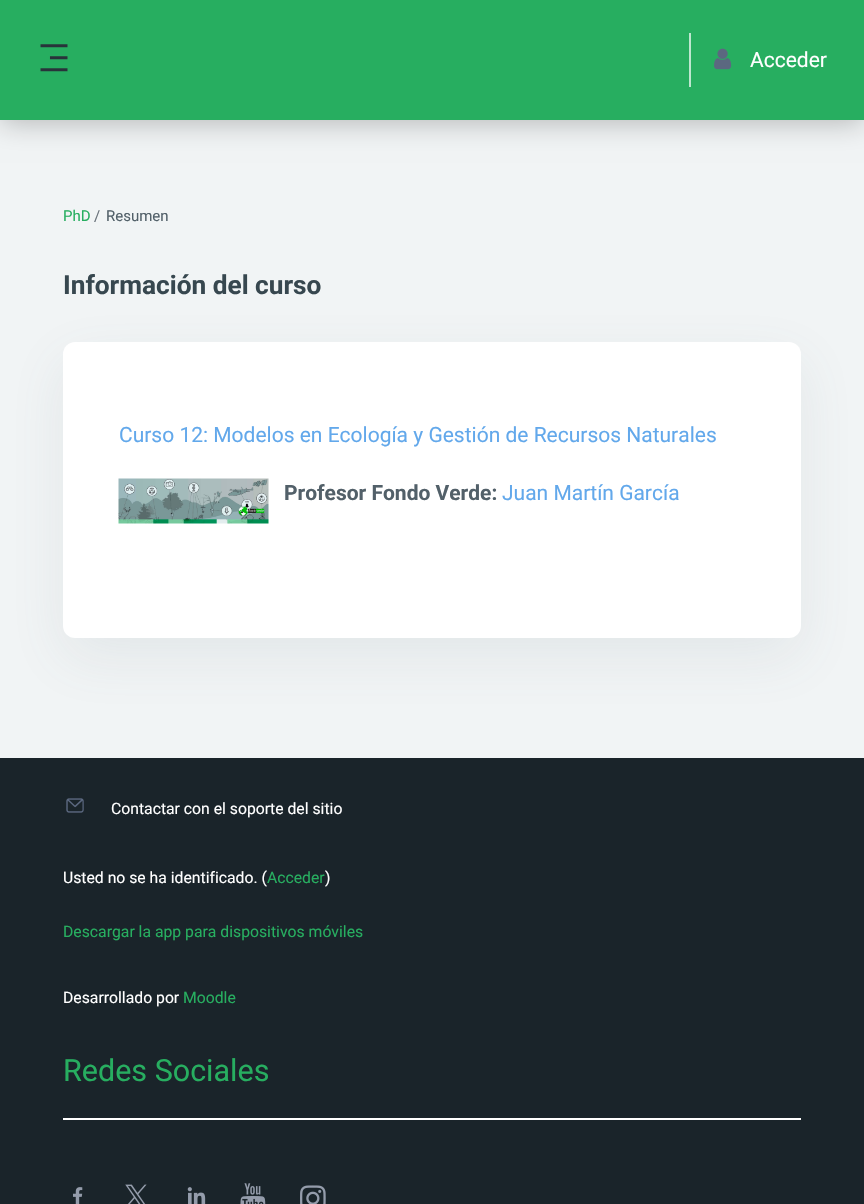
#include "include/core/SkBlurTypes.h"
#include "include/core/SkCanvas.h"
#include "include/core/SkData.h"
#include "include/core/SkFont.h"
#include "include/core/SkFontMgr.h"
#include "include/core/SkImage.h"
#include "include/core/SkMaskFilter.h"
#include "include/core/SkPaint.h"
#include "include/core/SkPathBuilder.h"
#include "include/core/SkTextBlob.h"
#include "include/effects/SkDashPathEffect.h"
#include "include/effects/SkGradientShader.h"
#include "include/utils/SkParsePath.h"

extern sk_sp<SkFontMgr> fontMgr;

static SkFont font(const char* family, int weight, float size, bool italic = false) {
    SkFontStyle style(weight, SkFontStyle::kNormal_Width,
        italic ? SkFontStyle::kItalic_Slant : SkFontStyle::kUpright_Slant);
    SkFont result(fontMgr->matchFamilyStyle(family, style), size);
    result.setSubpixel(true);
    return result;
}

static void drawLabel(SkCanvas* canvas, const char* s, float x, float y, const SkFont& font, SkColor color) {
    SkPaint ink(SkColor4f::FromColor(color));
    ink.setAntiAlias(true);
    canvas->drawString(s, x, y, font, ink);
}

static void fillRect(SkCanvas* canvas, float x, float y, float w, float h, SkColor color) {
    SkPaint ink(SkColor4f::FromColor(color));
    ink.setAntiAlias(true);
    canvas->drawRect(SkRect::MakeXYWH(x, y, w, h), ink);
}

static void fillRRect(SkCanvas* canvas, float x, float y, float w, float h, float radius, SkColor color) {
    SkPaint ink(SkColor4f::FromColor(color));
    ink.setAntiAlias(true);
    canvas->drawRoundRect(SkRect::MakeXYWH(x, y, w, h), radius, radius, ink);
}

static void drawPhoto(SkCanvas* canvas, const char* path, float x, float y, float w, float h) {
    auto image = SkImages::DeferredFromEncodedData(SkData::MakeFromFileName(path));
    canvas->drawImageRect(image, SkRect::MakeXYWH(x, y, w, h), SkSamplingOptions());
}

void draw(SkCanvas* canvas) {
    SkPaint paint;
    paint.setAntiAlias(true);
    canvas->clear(0xFFF1F4F5);
    paint.setColor(0x40000000);
    paint.setMaskFilter(SkMaskFilter::MakeBlur(kNormal_SkBlurStyle, 13.5f));
    canvas->drawRect(SkRect::MakeXYWH(0, 3, 864, 120), paint);
    paint.setMaskFilter(nullptr);
    fillRect(canvas, 0, 0, 864, 120, 0xFF27AE60);
    drawPhoto(canvas, "assets/img1.png", 40, 44, 28, 28);
    fillRect(canvas, 689, 33, 2, 54, 0xFFBEE7CF);
    drawPhoto(canvas, "assets/img2.png", 714, 48, 18, 22);
    SkFont font1 = font("Roboto", 400, 21);
    drawLabel(canvas, "Acceder", 750, 67, font1, 0xFFFFFFFF);
    SkFont font2 = font("Roboto", 400, 15);
    drawLabel(canvas, "PhD", 63, 221, font2, 0xFF27AE60);
    drawLabel(canvas, "/", 94, 221, font2, 0xFF6A737B);
    drawLabel(canvas, "Resumen", 106, 221, font2, 0xFF526069);
    paint.setColor(0x1A5C6B79);
    paint.setMaskFilter(SkMaskFilter::MakeBlur(kNormal_SkBlurStyle, 28));
    canvas->drawRoundRect(SkRect::MakeXYWH(63, 362, 738, 295), 12, 12, paint);
    paint.setMaskFilter(nullptr);
    SkFont font3 = font("Roboto", 700, 26.25f);
    drawLabel(canvas, "Información del curso", 63, 294, font3, 0xFF37474F);
    fillRRect(canvas, 63, 342, 738, 296, 12, 0xFFFFFFFF);
    drawLabel(canvas, "Curso 12: Modelos en Ecología y Gestión de Recursos Naturales", 119, 442, font1, 0xFF62A8EB);
    drawPhoto(canvas, "assets/img3.png", 118, 478, 151, 46);
    SkFont font4 = font("Roboto", 700, 21);
    drawLabel(canvas, "Profesor Fondo Verde:", 284, 500, font4, 0xFF526069);
    drawLabel(canvas, "Juan Martín García", 502, 500, font1, 0xFF62A8EB);
    fillRect(canvas, 0, 758, 864, 446, 0xFF1A242A);
    drawPhoto(canvas, "assets/img4.png", 66, 798, 18, 15);
    SkFont font5 = font("Roboto", 400, 15.75f);
    drawLabel(canvas, "Contactar con el soporte del sitio", 111, 814, font5, 0xFFFFFFFF);
    drawLabel(canvas, "Usted no se ha identificado. (", 63, 883, font5, 0xFFFFFFFF);
    drawLabel(canvas, "Acceder", 267, 883, font5, 0xFF27AE60);
    drawLabel(canvas, ")", 325, 883, font5, 0xFFFFFFFF);
    drawLabel(canvas, "Descargar la app para dispositivos móviles", 63, 937, font5, 0xFF27AE60);
    drawLabel(canvas, "Desarrollado por", 63, 1003, font5, 0xFFFFFFFF);
    drawLabel(canvas, "Moodle", 183, 1003, font5, 0xFF27AE60);
    SkFont font6 = font("Roboto", 400, 30.5f);
    drawLabel(canvas, "Redes Sociales", 63, 1081, font6, 0xFF27AE60);
    fillRect(canvas, 63, 1118, 738, 2, 0xFFFFFFFF);
    drawPhoto(canvas, "assets/img5.png", 73, 1187, 10, 17);
    drawPhoto(canvas, "assets/img6.png", 125, 1184, 22, 20);
    drawPhoto(canvas, "assets/img7.png", 187, 1187, 19, 17);
    drawPhoto(canvas, "assets/img8.png", 240, 1183, 26, 21);
    drawPhoto(canvas, "assets/img9.png", 300, 1185, 26, 19);
}
